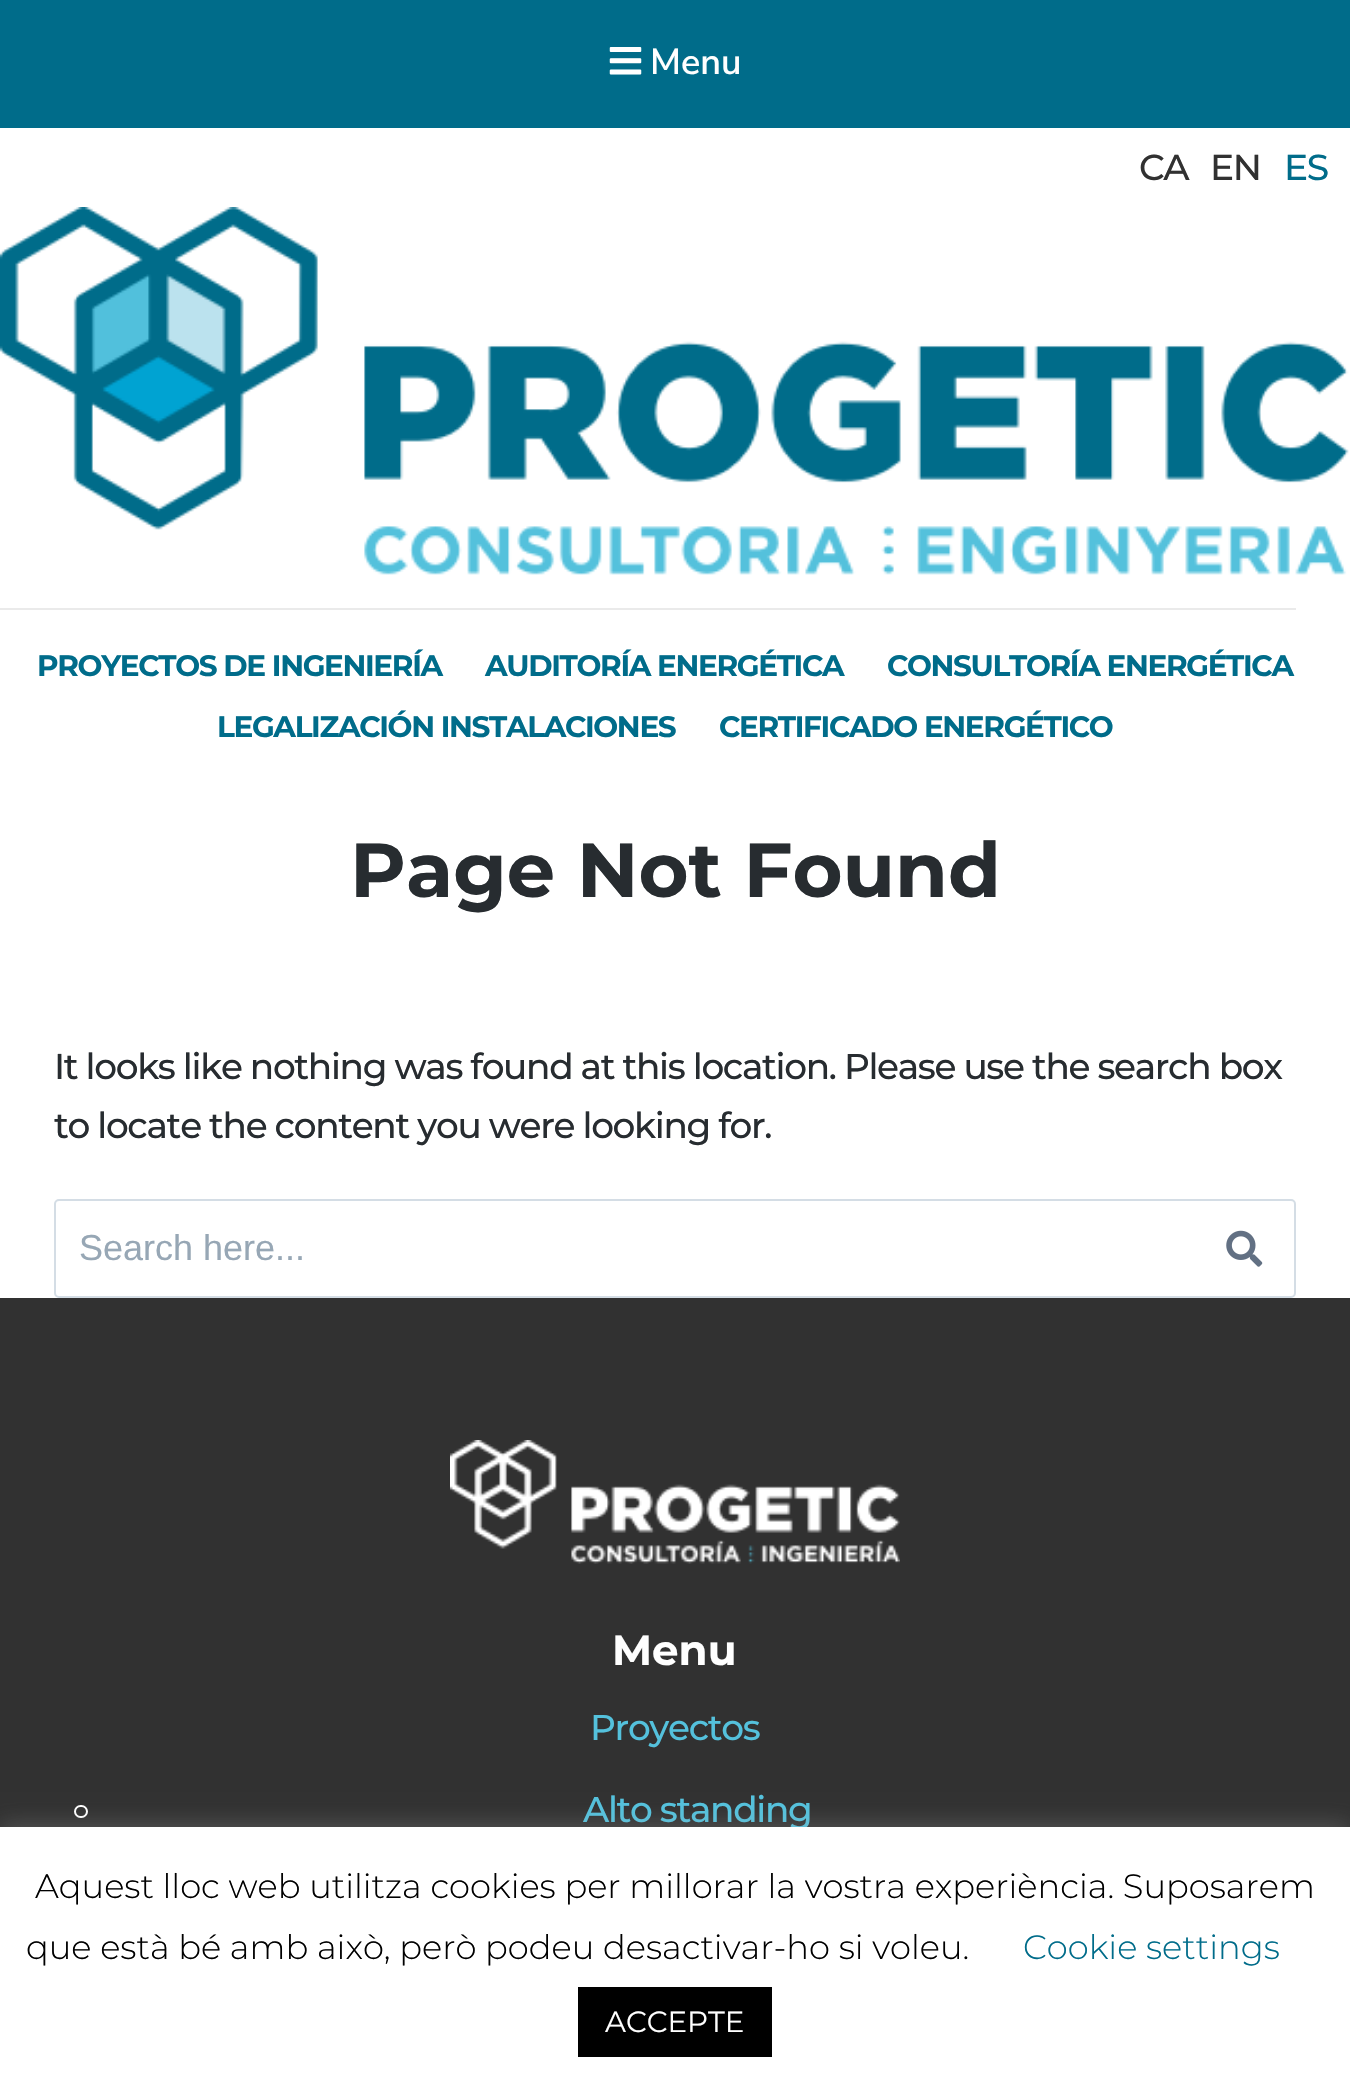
#include "include/core/SkBlurTypes.h"
#include "include/core/SkCanvas.h"
#include "include/core/SkData.h"
#include "include/core/SkFont.h"
#include "include/core/SkFontMgr.h"
#include "include/core/SkImage.h"
#include "include/core/SkMaskFilter.h"
#include "include/core/SkPaint.h"
#include "include/core/SkPathBuilder.h"
#include "include/core/SkTextBlob.h"
#include "include/effects/SkDashPathEffect.h"
#include "include/effects/SkGradientShader.h"
#include "include/utils/SkParsePath.h"

extern sk_sp<SkFontMgr> fontMgr;

static SkFont font(const char* family, int weight, float size, bool italic = false) {
    SkFontStyle style(weight, SkFontStyle::kNormal_Width,
        italic ? SkFontStyle::kItalic_Slant : SkFontStyle::kUpright_Slant);
    SkFont result(fontMgr->matchFamilyStyle(family, style), size);
    result.setSubpixel(true);
    return result;
}

static void drawLabel(SkCanvas* canvas, const char* s, float x, float y, const SkFont& font, SkColor color) {
    SkPaint ink(SkColor4f::FromColor(color));
    ink.setAntiAlias(true);
    canvas->drawString(s, x, y, font, ink);
}

static void drawTracked(SkCanvas* canvas, const char* s, float x, float y, const SkFont& font, const SkPaint& ink, float letter, float word) {
    std::vector<SkGlyphID> glyphs(font.countText(s, strlen(s), SkTextEncoding::kUTF8));
    std::vector<float> xs(glyphs.size());
    font.textToGlyphs(s, strlen(s), SkTextEncoding::kUTF8, glyphs);
    font.getXPos(glyphs, xs, x);
    float extra = 0;
    for (size_t i = 0; i < glyphs.size(); i++) {
        xs[i] += extra;
        extra += letter + word * (glyphs[i] == font.unicharToGlyph(' '));
    }
    canvas->drawTextBlob(SkTextBlob::MakeFromPosHGlyphs(glyphs, xs, y, font), 0, 0, ink);
}

static void fillRect(SkCanvas* canvas, float x, float y, float w, float h, SkColor color) {
    SkPaint ink(SkColor4f::FromColor(color));
    ink.setAntiAlias(true);
    canvas->drawRect(SkRect::MakeXYWH(x, y, w, h), ink);
}

static void drawPhoto(SkCanvas* canvas, const char* path, float x, float y, float w, float h) {
    auto image = SkImages::DeferredFromEncodedData(SkData::MakeFromFileName(path));
    canvas->drawImageRect(image, SkRect::MakeXYWH(x, y, w, h), SkSamplingOptions());
}

void draw(SkCanvas* canvas) {
    SkPaint paint;
    paint.setAntiAlias(true);
    canvas->clear(0xFFFFFFFF);
    fillRect(canvas, 0, 0, 1350, 128, 0xFF006C8A);
    drawPhoto(canvas, "assets/img1.png", 609, 47, 33, 28);
    SkFont font1 = font("Nunito Sans", 600, 36);
    drawLabel(canvas, "Menu", 650, 74, font1, 0xFFFFFFFF);
    SkFont font2 = font("Montserrat", 500, 36);
    paint.setColor(0xFF313131);
    drawTracked(canvas, "CA", 1139, 180, font2, paint, -1.33f, 0);
    drawTracked(canvas, "EN", 1210, 180, font2, paint, -1.33f, 0);
    paint.setColor(0xFF006C8A);
    drawTracked(canvas, "ES", 1284, 180, font2, paint, -1.33f, 0);
    drawPhoto(canvas, "assets/img2.png", 0, 207, 1349, 368);
    fillRect(canvas, 0, 608, 1296, 2, 0xFFEAEAEA);
    SkFont font3 = font("Montserrat", 700, 29.5f);
    drawTracked(canvas, "PROYECTOS DE INGENIERÍA", 37, 676, font3, paint, -1.33f, 0);
    drawTracked(canvas, "AUDITORÍA ENERGÉTICA", 485, 676, font3, paint, -1.33f, 0);
    drawTracked(canvas, "CONSULTORÍA ENERGÉTICA", 887, 676, font3, paint, -1.33f, 0);
    drawTracked(canvas, "LEGALIZACIÓN INSTALACIONES", 217, 737, font3, paint, -1.33f, 0);
    drawTracked(canvas, "CERTIFICADO ENERGÉTICO", 719, 737, font3, paint, -1.33f, 0);
    SkFont font4 = font("Montserrat", 700, 76.5f);
    drawLabel(canvas, "Page Not Found", 350, 897, font4, 0xFF272C30);
    SkFont font5 = font("Montserrat", 500, 35.85f);
    paint.setColor(0xFF272C30);
    drawTracked(canvas, "It looks like nothing was found at this location. Please use the search box", 54, 1079, font5, paint, -1.33f, 0);
    drawTracked(canvas, "to locate the content you were looking for.", 54, 1138, font5, paint, -1.33f, 0);
    paint.setStroke(true);
    paint.setStrokeWidth(2);
    paint.setColor(0xFFD4DDE5);
    canvas->drawRoundRect(SkRect::MakeXYWH(55, 1200, 1240, 97), 4, 4, paint);
    SkFont font6 = font("Liberation Sans", 400, 36);
    drawLabel(canvas, "Search here...", 79, 1260, font6, 0xFF97A7B5);
    drawPhoto(canvas, "assets/img3.png", 1226, 1230, 37, 37);
    fillRect(canvas, 0, 1298, 1350, 529, 0xFF313131);
    drawPhoto(canvas, "assets/img4.png", 450, 1440, 450, 124);
    SkFont font7 = font("Montserrat", 700, 42);
    drawLabel(canvas, "Menu", 612, 1665, font7, 0xFFFFFFFF);
    paint.setStroke(false);
    paint.setColor(0xFF54C1DC);
    drawTracked(canvas, "Proyectos", 590, 1740, font5, paint, -1.33f, 0);
    paint.setStroke(true);
    paint.setColor(0xFFFFFFFF);
    canvas->drawRoundRect(SkRect::MakeXYWH(75, 1806, 12, 11), 5.5f, 5.5f, paint);
    paint.setStroke(false);
    paint.setColor(0xFF54C1DC);
    drawTracked(canvas, "Alto standing", 583, 1822, font5, paint, -1.33f, 0);
    paint.setColor(0x4DACABAB);
    paint.setMaskFilter(SkMaskFilter::MakeBlur(kNormal_SkBlurStyle, 11));
    canvas->drawRect(SkRect::MakeXYWH(0, 1825, 1350, 268), paint);
    paint.setMaskFilter(nullptr);
    fillRect(canvas, 0, 1827, 1350, 267, 0xFFFFFFFF);
    SkFont font8 = font("Montserrat", 300, 33.75f);
    drawLabel(canvas, "Aquest lloc web utilitza cookies per millorar la vostra experiència. Suposarem", 35, 1898, font8, 0xFF000000);
    drawLabel(canvas, "que està bé amb això, però podeu desactivar-ho si voleu.", 26, 1959, font8, 0xFF000000);
    drawLabel(canvas, "Cookie settings", 1023, 1959, font8, 0xFF006C8A);
    fillRect(canvas, 578, 1987, 194, 70, 0xFF000000);
    SkFont font9 = font("Montserrat", 400, 29.25f);
    drawLabel(canvas, "ACCEPTE", 605, 2032, font9, 0xFFFFFFFF);
}
